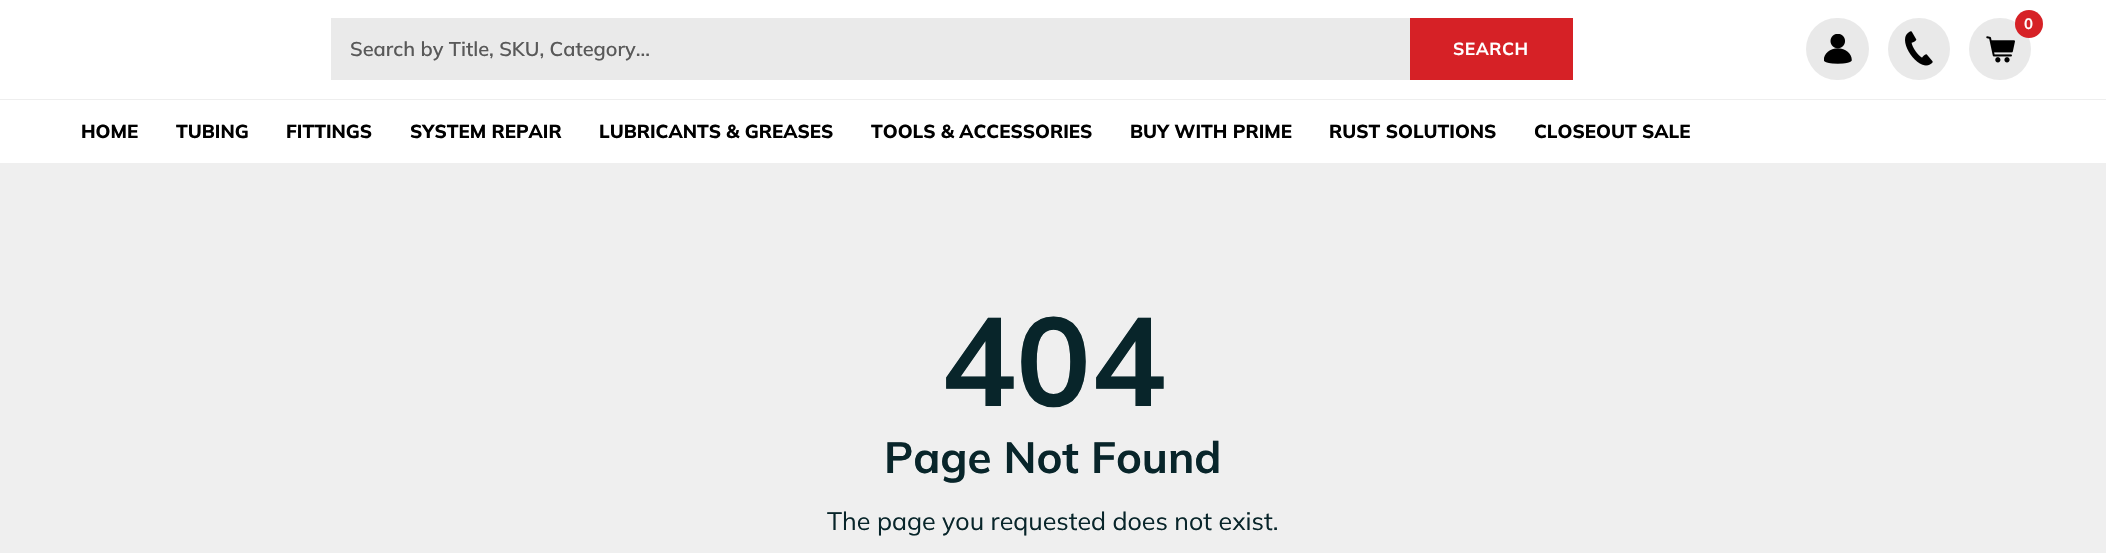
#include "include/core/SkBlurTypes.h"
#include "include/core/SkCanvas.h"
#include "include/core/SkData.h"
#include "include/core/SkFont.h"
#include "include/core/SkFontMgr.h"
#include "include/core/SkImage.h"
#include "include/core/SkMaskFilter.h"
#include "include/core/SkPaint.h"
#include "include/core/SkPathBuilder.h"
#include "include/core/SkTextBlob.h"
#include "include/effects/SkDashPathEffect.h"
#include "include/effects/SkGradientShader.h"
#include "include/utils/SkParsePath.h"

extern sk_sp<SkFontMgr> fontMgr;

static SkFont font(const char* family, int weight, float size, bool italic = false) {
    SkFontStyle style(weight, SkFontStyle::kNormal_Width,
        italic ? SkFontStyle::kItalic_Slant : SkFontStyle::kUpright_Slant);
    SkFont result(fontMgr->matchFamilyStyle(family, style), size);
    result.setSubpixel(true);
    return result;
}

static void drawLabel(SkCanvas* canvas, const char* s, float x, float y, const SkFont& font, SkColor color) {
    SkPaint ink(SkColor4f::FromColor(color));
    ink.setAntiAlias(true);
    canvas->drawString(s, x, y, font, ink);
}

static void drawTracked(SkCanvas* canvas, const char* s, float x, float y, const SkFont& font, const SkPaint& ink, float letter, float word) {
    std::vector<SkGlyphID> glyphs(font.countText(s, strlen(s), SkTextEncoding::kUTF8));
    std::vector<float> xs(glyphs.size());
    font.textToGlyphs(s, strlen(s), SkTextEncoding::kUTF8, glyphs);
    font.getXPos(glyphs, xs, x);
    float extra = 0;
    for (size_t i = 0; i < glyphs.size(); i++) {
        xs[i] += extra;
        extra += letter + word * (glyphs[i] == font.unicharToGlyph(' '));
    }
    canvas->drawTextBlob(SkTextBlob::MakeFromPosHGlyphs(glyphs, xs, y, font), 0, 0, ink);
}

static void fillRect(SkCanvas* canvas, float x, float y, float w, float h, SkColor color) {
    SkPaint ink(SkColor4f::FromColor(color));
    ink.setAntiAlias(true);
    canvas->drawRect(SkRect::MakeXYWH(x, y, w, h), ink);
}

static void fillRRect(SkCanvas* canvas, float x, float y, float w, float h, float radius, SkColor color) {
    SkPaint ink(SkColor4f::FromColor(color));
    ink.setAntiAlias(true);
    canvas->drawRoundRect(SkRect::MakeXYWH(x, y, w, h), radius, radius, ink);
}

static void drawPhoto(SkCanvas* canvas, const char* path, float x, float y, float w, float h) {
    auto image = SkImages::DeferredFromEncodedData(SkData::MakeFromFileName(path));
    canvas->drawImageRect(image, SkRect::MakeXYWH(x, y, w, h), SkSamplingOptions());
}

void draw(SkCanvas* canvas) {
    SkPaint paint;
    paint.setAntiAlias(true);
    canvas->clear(0xFFEFEFEF);
    fillRect(canvas, 0, 0, 2106, 163, 0xFFFFFFFF);
    fillRRect(canvas, 1806, 18, 63, 62, 31, 0xFFE9E9E9);
    drawPhoto(canvas, "assets/img1.png", 1824, 34, 28, 30);
    paint.setColor(0xFFE9E9E9);
    canvas->drawCircle(1919, 49, 31, paint);
    drawPhoto(canvas, "assets/img2.png", 1905, 31, 28, 35);
    canvas->drawCircle(2000, 49, 31, paint);
    paint.setColor(0xFFD62126);
    canvas->drawCircle(2029, 24, 14, paint);
    SkFont font1 = font("Mulish", 700, 15);
    drawLabel(canvas, "0", 2024, 29, font1, 0xFFFFFFFF);
    drawPhoto(canvas, "assets/img3.png", 1986, 36, 29, 27);
    fillRect(canvas, 331, 18, 1079, 62, 0xFFEAEAEA);
    SkFont font2 = font("Mulish", 600, 20);
    drawLabel(canvas, "Search by Title, SKU, Category...", 350, 56, font2, 0xFF595959);
    fillRect(canvas, 1410, 18, 163, 62, 0xFFD62126);
    SkFont font3 = font("Mulish", 700, 17.5f);
    paint.setColor(0xFFFFFFFF);
    drawTracked(canvas, "SEARCH", 1453, 55, font3, paint, 0.5f, 0);
    fillRect(canvas, 0, 99, 2106, 1, 0xFFEEEEEE);
    SkFont font4 = font("Mulish", 800, 18.75f);
    drawLabel(canvas, "HOME", 81, 138, font4, 0xFF000000);
    drawLabel(canvas, "TUBING", 176, 138, font4, 0xFF000000);
    drawLabel(canvas, "FITTINGS", 286, 138, font4, 0xFF000000);
    drawLabel(canvas, "SYSTEM REPAIR", 410, 138, font4, 0xFF000000);
    drawLabel(canvas, "LUBRICANTS & GREASES", 599, 138, font4, 0xFF000000);
    drawLabel(canvas, "TOOLS & ACCESSORIES", 871, 138, font4, 0xFF000000);
    drawLabel(canvas, "BUY WITH PRIME", 1130, 138, font4, 0xFF000000);
    drawLabel(canvas, "RUST SOLUTIONS", 1329, 138, font4, 0xFF000000);
    drawLabel(canvas, "CLOSEOUT SALE", 1534, 138, font4, 0xFF000000);
    SkFont font5 = font("Mulish", 700, 125);
    drawLabel(canvas, "404", 941, 406, font5, 0xFF08252A);
    SkFont font6 = font("Mulish", 700, 43.75f);
    drawLabel(canvas, "Page Not Found", 884, 473, font6, 0xFF08252A);
    SkFont font7 = font("Mulish", 400, 25);
    drawLabel(canvas, "The page you requested does not exist.", 827, 530, font7, 0xFF08252A);
}
